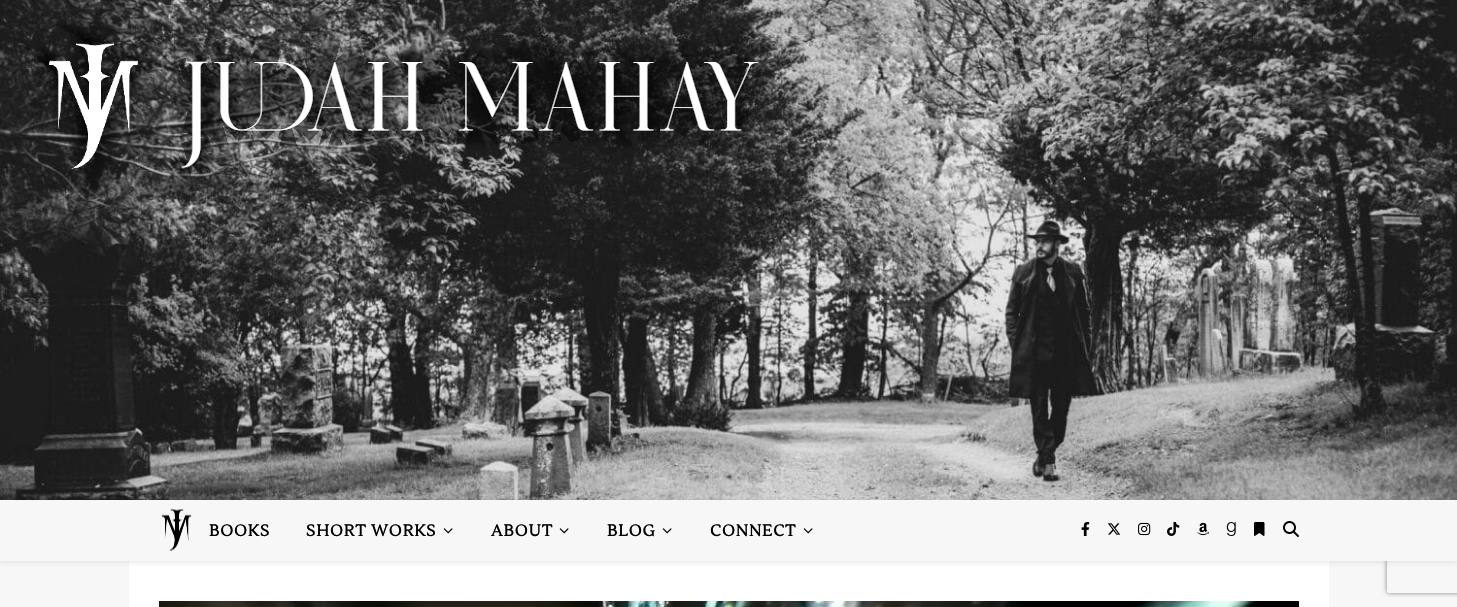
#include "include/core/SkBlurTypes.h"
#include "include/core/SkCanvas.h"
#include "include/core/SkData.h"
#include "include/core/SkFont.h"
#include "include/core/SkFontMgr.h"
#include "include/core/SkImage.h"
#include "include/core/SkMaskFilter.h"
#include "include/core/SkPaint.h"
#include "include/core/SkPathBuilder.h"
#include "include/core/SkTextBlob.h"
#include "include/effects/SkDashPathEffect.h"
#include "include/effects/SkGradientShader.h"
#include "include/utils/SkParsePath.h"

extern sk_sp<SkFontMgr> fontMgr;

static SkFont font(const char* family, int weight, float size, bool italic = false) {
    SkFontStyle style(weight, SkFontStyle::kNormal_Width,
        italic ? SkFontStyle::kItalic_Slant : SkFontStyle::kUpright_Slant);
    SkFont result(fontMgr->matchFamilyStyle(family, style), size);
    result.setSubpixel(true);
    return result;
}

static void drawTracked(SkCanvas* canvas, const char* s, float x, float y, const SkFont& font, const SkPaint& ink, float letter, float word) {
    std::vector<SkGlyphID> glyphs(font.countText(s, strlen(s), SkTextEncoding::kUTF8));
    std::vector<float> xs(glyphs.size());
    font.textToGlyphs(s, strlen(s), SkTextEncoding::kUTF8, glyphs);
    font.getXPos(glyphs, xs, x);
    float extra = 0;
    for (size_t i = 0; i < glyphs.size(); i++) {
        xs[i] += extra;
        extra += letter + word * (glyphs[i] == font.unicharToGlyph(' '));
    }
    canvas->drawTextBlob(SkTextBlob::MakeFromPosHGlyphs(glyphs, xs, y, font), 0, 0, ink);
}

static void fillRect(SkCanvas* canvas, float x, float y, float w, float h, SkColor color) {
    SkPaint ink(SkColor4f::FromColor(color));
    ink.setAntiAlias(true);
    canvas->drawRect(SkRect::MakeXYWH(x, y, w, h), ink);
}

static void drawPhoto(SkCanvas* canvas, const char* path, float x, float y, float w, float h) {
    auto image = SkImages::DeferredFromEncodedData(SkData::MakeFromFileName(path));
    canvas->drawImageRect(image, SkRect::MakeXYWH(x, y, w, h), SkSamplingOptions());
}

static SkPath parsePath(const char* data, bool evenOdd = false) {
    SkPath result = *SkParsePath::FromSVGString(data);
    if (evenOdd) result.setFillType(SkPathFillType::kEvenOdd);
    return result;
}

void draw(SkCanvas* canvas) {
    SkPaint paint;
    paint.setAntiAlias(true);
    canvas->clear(0xFFF7F7F7);
    drawPhoto(canvas, "assets/img1.png", 0, 0, 1457, 500);
    drawPhoto(canvas, "assets/img2.png", 20, 20, 750, 173);
    fillRect(canvas, 129, 561, 1200, 46, 0xFFFFFFFF);
    paint.setColor(0x1A000000);
    paint.setMaskFilter(SkMaskFilter::MakeBlur(kNormal_SkBlurStyle, 2.5f));
    canvas->drawRect(SkRect::MakeXYWH(0, 501, 1457, 61), paint);
    paint.setMaskFilter(nullptr);
    canvas->save();
    canvas->clipPath(parsePath("M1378 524H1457V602H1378ZM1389 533H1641C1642 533 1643 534 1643 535V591C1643 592 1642 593 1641 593H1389C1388 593 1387 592 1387 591V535C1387 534 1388 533 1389 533Z", true), true);
    paint.setColor(0xFF808080);
    paint.setMaskFilter(SkMaskFilter::MakeBlur(kNormal_SkBlurStyle, 2.5f));
    canvas->drawRoundRect(SkRect::MakeXYWH(1387, 533, 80, 60), 2, 2, paint);
    paint.setMaskFilter(nullptr);
    canvas->restore();
    fillRect(canvas, 0, 500, 1457, 61, 0xFFF7F7F7);
    drawPhoto(canvas, "assets/img3.png", 161, 509, 31, 42);
    SkFont font1 = font("Lustria", 700, 16);
    paint.setColor(0xFF000000);
    drawTracked(canvas, "BOOKS", 209, 536, font1, paint, 1, 0);
    drawTracked(canvas, "SHORT WORKS", 306, 536, font1, paint, 1, 0);
    drawPhoto(canvas, "assets/img4.png", 443, 528, 10, 6);
    drawTracked(canvas, "ABOUT", 491, 536, font1, paint, 1, 0);
    drawPhoto(canvas, "assets/img4.png", 559, 528, 10, 6);
    drawTracked(canvas, "BLOG", 607, 536, font1, paint, 1, 0);
    drawPhoto(canvas, "assets/img4.png", 662, 528, 10, 6);
    drawTracked(canvas, "CONNECT", 710, 536, font1, paint, 1, 0);
    drawPhoto(canvas, "assets/img4.png", 803, 528, 10, 6);
    drawPhoto(canvas, "assets/img5.png", 1081, 522, 9, 14);
    drawPhoto(canvas, "assets/img6.png", 1107, 523, 14, 12);
    drawPhoto(canvas, "assets/img7.png", 1138, 522, 13, 14);
    drawPhoto(canvas, "assets/img8.png", 1167, 522, 13, 14);
    drawPhoto(canvas, "assets/img9.png", 1197, 522, 12, 14);
    drawPhoto(canvas, "assets/img10.png", 1226, 522, 10, 14);
    drawPhoto(canvas, "assets/img11.png", 1254, 522, 11, 14);
    drawPhoto(canvas, "assets/img12.png", 1283, 521, 16, 16);
    drawPhoto(canvas, "assets/img13.png", 159, 601, 1140, 6);
}
